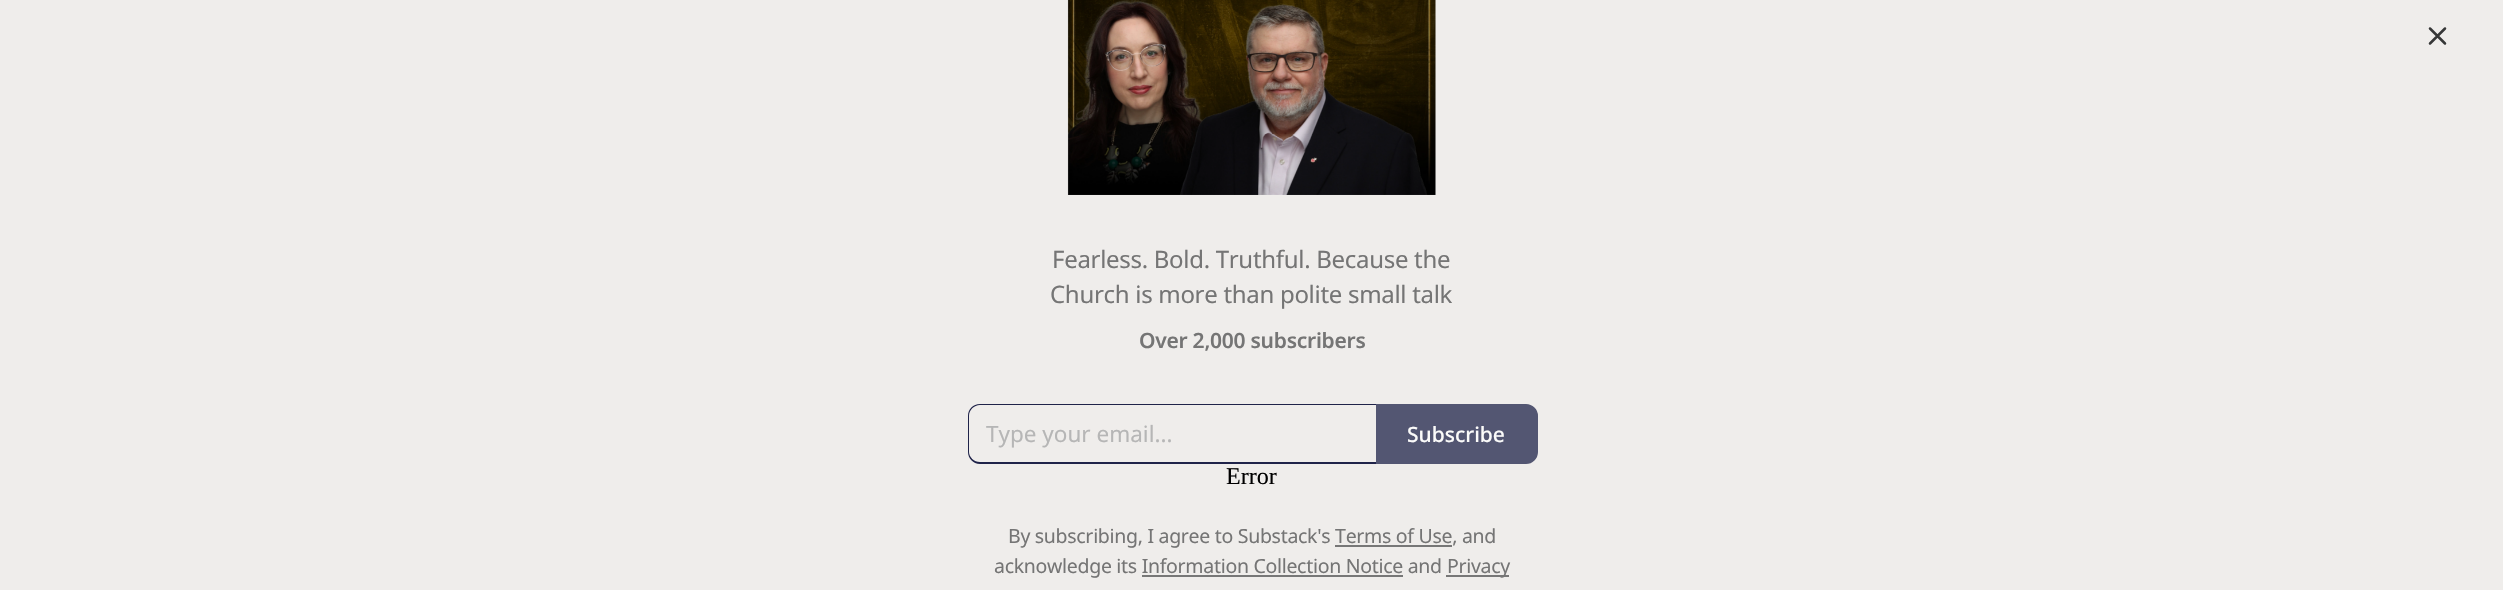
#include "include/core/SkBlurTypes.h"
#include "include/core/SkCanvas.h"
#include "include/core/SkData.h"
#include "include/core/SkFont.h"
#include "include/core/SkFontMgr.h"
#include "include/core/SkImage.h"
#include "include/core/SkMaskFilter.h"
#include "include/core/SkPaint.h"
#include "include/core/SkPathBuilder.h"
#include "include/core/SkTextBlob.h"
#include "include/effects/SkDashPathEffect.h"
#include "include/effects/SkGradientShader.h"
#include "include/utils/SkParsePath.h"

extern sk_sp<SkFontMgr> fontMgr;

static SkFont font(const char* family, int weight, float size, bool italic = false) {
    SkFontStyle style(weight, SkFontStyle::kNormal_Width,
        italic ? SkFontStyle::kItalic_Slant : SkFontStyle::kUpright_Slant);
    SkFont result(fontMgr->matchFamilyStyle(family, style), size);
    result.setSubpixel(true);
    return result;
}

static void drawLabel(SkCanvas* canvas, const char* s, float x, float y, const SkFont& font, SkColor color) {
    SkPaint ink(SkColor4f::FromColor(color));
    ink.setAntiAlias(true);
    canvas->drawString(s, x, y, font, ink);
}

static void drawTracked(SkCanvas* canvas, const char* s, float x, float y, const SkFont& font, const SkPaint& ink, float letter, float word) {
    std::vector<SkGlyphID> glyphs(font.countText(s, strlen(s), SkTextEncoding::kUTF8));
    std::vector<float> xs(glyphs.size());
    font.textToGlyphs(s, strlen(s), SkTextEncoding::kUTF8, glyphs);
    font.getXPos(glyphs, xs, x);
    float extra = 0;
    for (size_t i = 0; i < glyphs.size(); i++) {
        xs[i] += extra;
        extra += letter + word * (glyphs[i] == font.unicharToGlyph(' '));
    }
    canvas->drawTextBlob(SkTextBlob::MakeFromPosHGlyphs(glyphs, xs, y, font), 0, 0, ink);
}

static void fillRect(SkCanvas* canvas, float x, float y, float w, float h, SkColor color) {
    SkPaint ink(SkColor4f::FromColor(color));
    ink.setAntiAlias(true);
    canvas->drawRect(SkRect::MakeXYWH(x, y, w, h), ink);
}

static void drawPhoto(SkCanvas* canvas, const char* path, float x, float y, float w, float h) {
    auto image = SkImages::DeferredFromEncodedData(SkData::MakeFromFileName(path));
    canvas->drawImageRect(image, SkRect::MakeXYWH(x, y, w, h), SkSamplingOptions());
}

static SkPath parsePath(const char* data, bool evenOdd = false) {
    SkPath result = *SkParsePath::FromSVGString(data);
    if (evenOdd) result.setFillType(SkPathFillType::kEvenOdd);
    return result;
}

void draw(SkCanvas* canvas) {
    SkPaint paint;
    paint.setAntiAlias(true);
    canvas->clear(0xFFEFEDEB);
    drawPhoto(canvas, "assets/img1.png", 1067, 0, 369, 195);
    paint.setStroke(true);
    paint.setStrokeWidth(2.5f);
    paint.setStrokeCap(SkPaint::kRound_Cap);
    paint.setStrokeJoin(SkPaint::kRound_Join);
    paint.setColor(0xFF363737);
    canvas->drawPath(parsePath("M2445 28.5L2430 43.5M2430 28.5L2445 43.5"), paint);
    SkFont font1 = font("Noto Sans", 400, 24);
    paint.setStroke(false);
    paint.setColor(0xFF757575);
    drawTracked(canvas, "Fearless. Bold. Truthful. Because the", 1052, 268, font1, paint, -0.3f, 0);
    drawTracked(canvas, "Church is more than polite small talk", 1050, 303, font1, paint, -0.3f, 0);
    SkFont font2 = font("Noto Sans", 600, 21);
    drawTracked(canvas, "Over 2,000 subscribers", 1139, 348, font2, paint, -0.25f, 0);
    paint.setColor(0xFF1F2349);
    canvas->drawPath(parsePath("M980 404H1376V464H980C973 464 968 458 968 452V416C968 409 973 404 980 404ZM980 405H1376V462H980C974 462 969 457 969 452V416C969 410 974 405 980 405Z", true), paint);
    SkFont font3 = font("Noto Sans", 400, 22.5f);
    drawLabel(canvas, "Type your email...", 986, 442, font3, 0xFFB6B6B6);
    paint.setColor(0xFF535672);
    canvas->drawPath(parsePath("M1377 405H1526C1532 405 1537 410 1537 416V452C1537 458 1532 463 1526 463H1377Z"), paint);
    paint.setStroke(true);
    paint.setStrokeWidth(2);
    paint.setStrokeCap(SkPaint::kButt_Cap);
    paint.setStrokeJoin(SkPaint::kMiter_Join);
    canvas->drawPath(parsePath("M1377 405H1526C1532 405 1537 410 1537 416V452C1537 458 1532 463 1526 463H1377Z"), paint);
    SkFont font4 = font("Noto Sans", 500, 21);
    drawLabel(canvas, "Subscribe", 1407, 442, font4, 0xFFFBFBFA);
    SkFont font5 = font("Liberation Serif", 400, 24);
    drawLabel(canvas, "Error", 1226, 484, font5, 0xFF000000);
    SkFont font6 = font("Noto Sans", 400, 19.5f);
    paint.setStroke(false);
    paint.setColor(0xFF757575);
    drawTracked(canvas, "By subscribing, I agree to Substack's Terms of Use, and", 1008, 543, font6, paint, -0.3f, 0);
    fillRect(canvas, 1335, 545, 117, 2, 0xFF777777);
    drawTracked(canvas, "acknowledge its Information Collection Notice and", 994, 573, font6, paint, -0.3f, 0);
    fillRect(canvas, 1446, 575, 63, 2, 0xFF777777);
    drawTracked(canvas, "Privacy", 1447, 573, font6, paint, -0.3f, 0);
    fillRect(canvas, 1142, 575, 261, 2, 0xFF777777);
}
